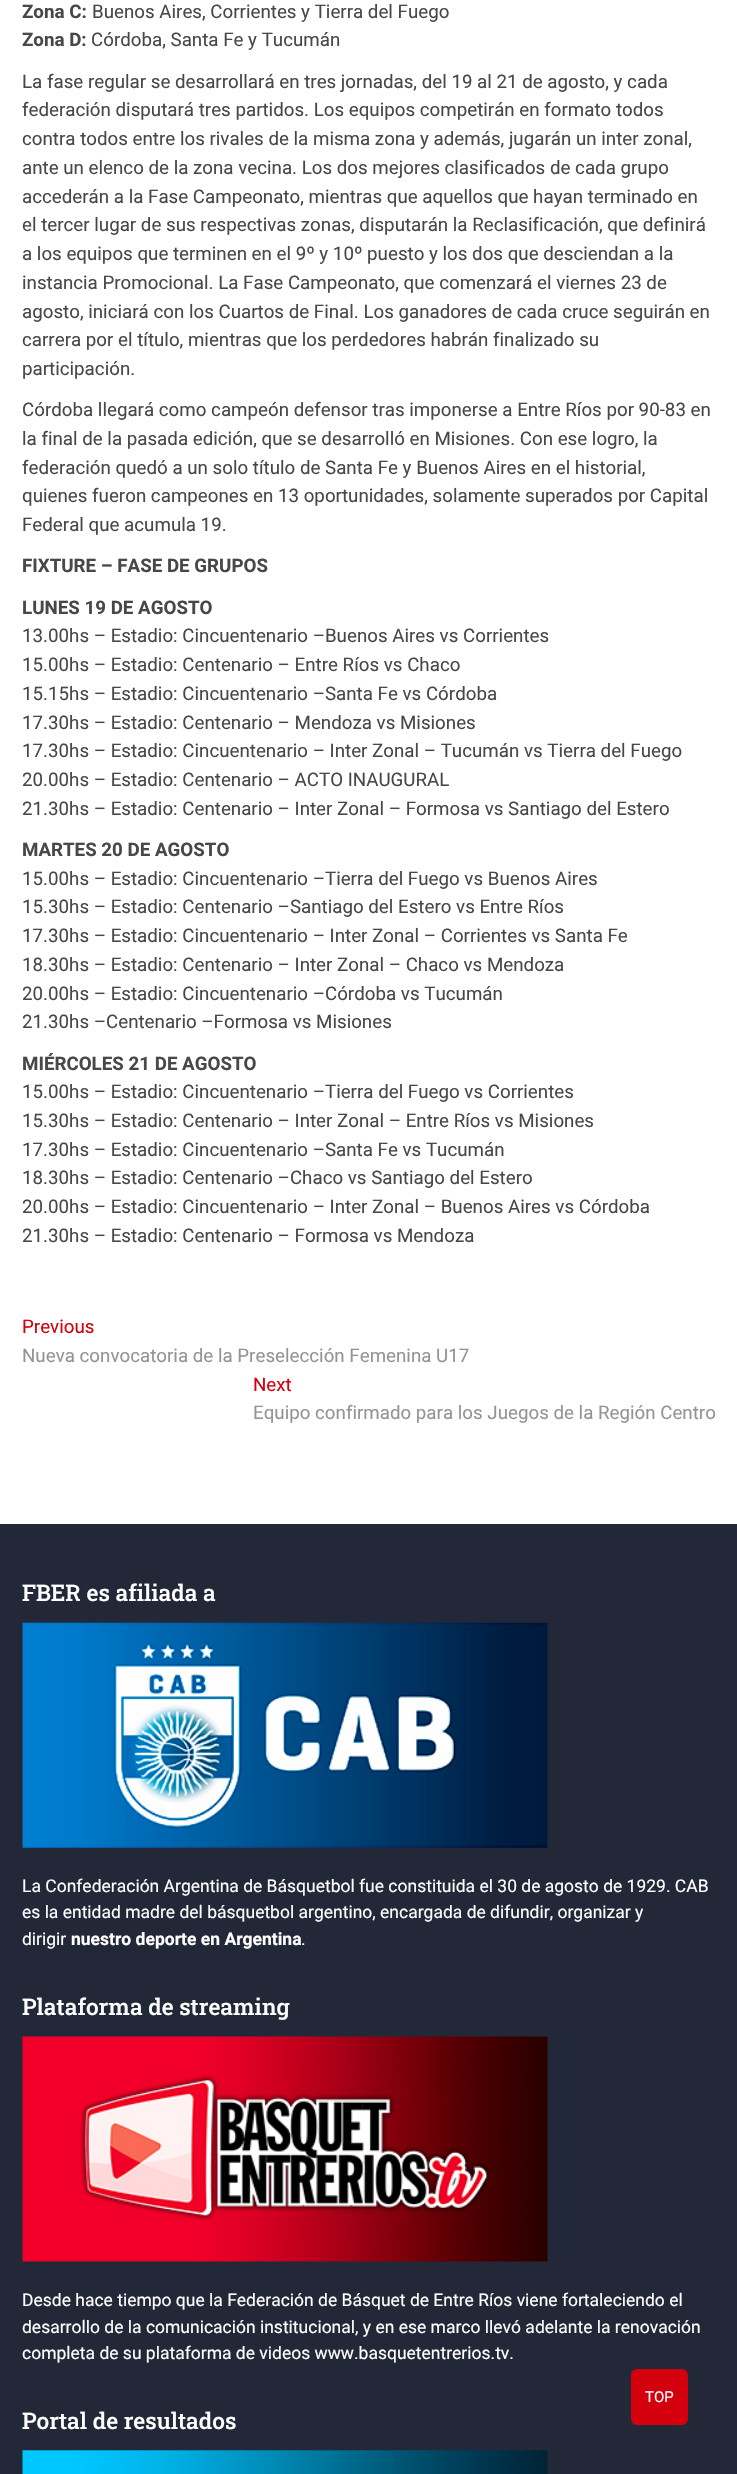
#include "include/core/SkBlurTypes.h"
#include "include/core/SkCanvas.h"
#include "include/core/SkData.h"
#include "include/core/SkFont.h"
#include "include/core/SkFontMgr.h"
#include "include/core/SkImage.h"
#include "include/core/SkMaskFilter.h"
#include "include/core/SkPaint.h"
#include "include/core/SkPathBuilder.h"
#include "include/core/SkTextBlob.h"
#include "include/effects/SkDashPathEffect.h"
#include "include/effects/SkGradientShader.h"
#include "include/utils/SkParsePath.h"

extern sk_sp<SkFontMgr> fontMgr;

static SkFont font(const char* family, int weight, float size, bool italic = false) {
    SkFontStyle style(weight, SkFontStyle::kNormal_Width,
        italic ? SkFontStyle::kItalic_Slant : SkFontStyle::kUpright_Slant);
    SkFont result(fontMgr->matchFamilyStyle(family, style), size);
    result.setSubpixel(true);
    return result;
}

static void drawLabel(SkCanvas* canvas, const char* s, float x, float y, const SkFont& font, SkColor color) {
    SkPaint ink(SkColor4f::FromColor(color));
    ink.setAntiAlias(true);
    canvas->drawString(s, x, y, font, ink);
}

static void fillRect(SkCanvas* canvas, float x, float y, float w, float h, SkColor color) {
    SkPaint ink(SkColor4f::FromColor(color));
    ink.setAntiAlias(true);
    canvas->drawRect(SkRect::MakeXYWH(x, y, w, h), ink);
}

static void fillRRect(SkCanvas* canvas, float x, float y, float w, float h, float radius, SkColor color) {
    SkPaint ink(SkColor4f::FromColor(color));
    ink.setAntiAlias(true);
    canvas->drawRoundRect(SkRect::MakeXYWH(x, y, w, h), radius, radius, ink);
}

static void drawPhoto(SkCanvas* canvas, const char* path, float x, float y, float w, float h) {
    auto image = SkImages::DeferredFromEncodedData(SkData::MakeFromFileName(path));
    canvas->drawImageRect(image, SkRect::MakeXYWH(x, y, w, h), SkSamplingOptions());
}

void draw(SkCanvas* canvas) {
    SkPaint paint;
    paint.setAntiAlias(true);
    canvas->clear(0xFFFFFFFF);
    fillRect(canvas, 0, 1525, 737, 949, 0xFF222838);
    SkFont font1 = font("Roboto", 700, 18.75f);
    drawLabel(canvas, "Zona C:", 22, 18, font1, 0xFF484848);
    SkFont font2 = font("Roboto", 400, 18.75f);
    drawLabel(canvas, "Buenos Aires, Corrientes y Tierra del Fuego", 92, 18, font2, 0xFF484848);
    drawLabel(canvas, "Zona D:", 22, 46, font1, 0xFF484848);
    drawLabel(canvas, "Córdoba, Santa Fe y Tucumán", 91, 46, font2, 0xFF484848);
    drawLabel(canvas, "La fase regular se desarrollará en tres jornadas, del 19 al 21 de agosto, y cada", 22, 88, font2, 0xFF484848);
    drawLabel(canvas, "federación disputará tres partidos. Los equipos competirán en formato todos", 22, 116, font2, 0xFF484848);
    drawLabel(canvas, "contra todos entre los rivales de la misma zona y además, jugarán un inter zonal,", 22, 145, font2, 0xFF484848);
    drawLabel(canvas, "ante un elenco de la zona vecina. Los dos mejores clasificados de cada grupo", 22, 174, font2, 0xFF484848);
    drawLabel(canvas, "accederán a la Fase Campeonato, mientras que aquellos que hayan terminado en", 22, 203, font2, 0xFF484848);
    drawLabel(canvas, "el tercer lugar de sus respectivas zonas, disputarán la Reclasificación, que definirá", 22, 231, font2, 0xFF484848);
    drawLabel(canvas, "a los equipos que terminen en el 9º y 10º puesto y los dos que desciendan a la", 22, 260, font2, 0xFF484848);
    drawLabel(canvas, "instancia Promocional. La Fase Campeonato, que comenzará el viernes 23 de", 22, 289, font2, 0xFF484848);
    drawLabel(canvas, "agosto, iniciará con los Cuartos de Final. Los ganadores de cada cruce seguirán en", 22, 318, font2, 0xFF484848);
    drawLabel(canvas, "carrera por el título, mientras que los perdedores habrán finalizado su", 22, 346, font2, 0xFF484848);
    drawLabel(canvas, "participación.", 22, 375, font2, 0xFF484848);
    drawLabel(canvas, "Córdoba llegará como campeón defensor tras imponerse a Entre Ríos por 90-83 en", 22, 416, font2, 0xFF484848);
    drawLabel(canvas, "la final de la pasada edición, que se desarrolló en Misiones. Con ese logro, la", 22, 445, font2, 0xFF484848);
    drawLabel(canvas, "federación quedó a un solo título de Santa Fe y Buenos Aires en el historial,", 22, 474, font2, 0xFF484848);
    drawLabel(canvas, "quienes fueron campeones en 13 oportunidades, solamente superados por Capital", 22, 502, font2, 0xFF484848);
    drawLabel(canvas, "Federal que acumula 19.", 22, 531, font2, 0xFF484848);
    drawLabel(canvas, "FIXTURE – FASE DE GRUPOS", 22, 572, font1, 0xFF484848);
    drawLabel(canvas, "LUNES 19 DE AGOSTO", 22, 614, font1, 0xFF484848);
    drawLabel(canvas, "13.00hs – Estadio: Cincuentenario –Buenos Aires vs Corrientes", 22, 642, font2, 0xFF484848);
    drawLabel(canvas, "15.00hs – Estadio: Centenario – Entre Ríos vs Chaco", 22, 671, font2, 0xFF484848);
    drawLabel(canvas, "15.15hs – Estadio: Cincuentenario –Santa Fe vs Córdoba", 22, 700, font2, 0xFF484848);
    drawLabel(canvas, "17.30hs – Estadio: Centenario – Mendoza vs Misiones", 22, 729, font2, 0xFF484848);
    drawLabel(canvas, "17.30hs – Estadio: Cincuentenario – Inter Zonal – Tucumán vs Tierra del Fuego", 22, 757, font2, 0xFF484848);
    drawLabel(canvas, "20.00hs – Estadio: Centenario – ACTO INAUGURAL", 22, 786, font2, 0xFF484848);
    drawLabel(canvas, "21.30hs – Estadio: Centenario – Inter Zonal – Formosa vs Santiago del Estero", 22, 815, font2, 0xFF484848);
    drawLabel(canvas, "MARTES 20 DE AGOSTO", 22, 856, font1, 0xFF484848);
    drawLabel(canvas, "15.00hs – Estadio: Cincuentenario –Tierra del Fuego vs Buenos Aires", 22, 885, font2, 0xFF484848);
    drawLabel(canvas, "15.30hs – Estadio: Centenario –Santiago del Estero vs Entre Ríos", 22, 913, font2, 0xFF484848);
    drawLabel(canvas, "17.30hs – Estadio: Cincuentenario – Inter Zonal – Corrientes vs Santa Fe", 22, 942, font2, 0xFF484848);
    drawLabel(canvas, "18.30hs – Estadio: Centenario – Inter Zonal – Chaco vs Mendoza", 22, 971, font2, 0xFF484848);
    drawLabel(canvas, "20.00hs – Estadio: Cincuentenario –Córdoba vs Tucumán", 22, 1000, font2, 0xFF484848);
    drawLabel(canvas, "21.30hs –Centenario –Formosa vs Misiones", 22, 1028, font2, 0xFF484848);
    drawLabel(canvas, "MIÉRCOLES 21 DE AGOSTO", 22, 1070, font1, 0xFF484848);
    drawLabel(canvas, "15.00hs – Estadio: Cincuentenario –Tierra del Fuego vs Corrientes", 22, 1098, font2, 0xFF484848);
    drawLabel(canvas, "15.30hs – Estadio: Centenario – Inter Zonal – Entre Ríos vs Misiones", 22, 1127, font2, 0xFF484848);
    drawLabel(canvas, "17.30hs – Estadio: Cincuentenario –Santa Fe vs Tucumán", 22, 1156, font2, 0xFF484848);
    drawLabel(canvas, "18.30hs – Estadio: Centenario –Chaco vs Santiago del Estero", 22, 1184, font2, 0xFF484848);
    drawLabel(canvas, "20.00hs – Estadio: Cincuentenario – Inter Zonal – Buenos Aires vs Córdoba", 22, 1213, font2, 0xFF484848);
    drawLabel(canvas, "21.30hs – Estadio: Centenario – Formosa vs Mendoza", 22, 1242, font2, 0xFF484848);
    drawLabel(canvas, "Previous", 22, 1333, font2, 0xFFD4000E);
    drawLabel(canvas, "Nueva convocatoria de la Preselección Femenina U17", 22, 1362, font2, 0xFF949494);
    drawLabel(canvas, "Next", 253, 1391, font2, 0xFFD4000E);
    drawLabel(canvas, "Equipo confirmado para los Juegos de la Región Centro", 253, 1419, font2, 0xFF949494);
    fillRect(canvas, 0, 1524, 737, 1, 0xFF202737);
    SkFont font3 = font("Roboto Slab", 500, 22.75f);
    drawLabel(canvas, "FBER es afiliada a", 22, 1601, font3, 0xFFFFFFFF);
    drawPhoto(canvas, "assets/img1.png", 22, 1622, 526, 226);
    SkFont font4 = font("Roboto", 400, 17.5f);
    drawLabel(canvas, "La Confederación Argentina de Básquetbol fue constituida el 30 de agosto de 1929. CAB", 22, 1892, font4, 0xFFFFFFFF);
    drawLabel(canvas, "es la entidad madre del básquetbol argentino, encargada de difundir, organizar y", 22, 1918, font4, 0xFFFFFFFF);
    drawLabel(canvas, "dirigir", 22, 1945, font4, 0xFFFFFFFF);
    SkFont font5 = font("Roboto", 700, 17.5f);
    drawLabel(canvas, "nuestro deporte en Argentina", 71, 1945, font5, 0xFFFFFFFF);
    drawLabel(canvas, ".", 301, 1945, font4, 0xFFFFFFFF);
    drawLabel(canvas, "Plataforma de streaming", 22, 2015, font3, 0xFFFFFFFF);
    drawPhoto(canvas, "assets/img2.png", 22, 2036, 526, 226);
    drawLabel(canvas, "Desde hace tiempo que la Federación de Básquet de Entre Ríos viene fortaleciendo el", 22, 2306, font4, 0xFFFFFFFF);
    drawLabel(canvas, "desarrollo de la comunicación institucional, y en ese marco llevó adelante la renovación", 22, 2333, font4, 0xFFFFFFFF);
    drawLabel(canvas, "completa de su plataforma de videos www.basquetentrerios.tv.", 22, 2359, font4, 0xFFFFFFFF);
    drawLabel(canvas, "Portal de resultados", 22, 2429, font3, 0xFFFFFFFF);
    drawPhoto(canvas, "assets/img3.png", 22, 2450, 526, 24);
    fillRRect(canvas, 631, 2369, 57, 56, 6, 0xFFD4000E);
    SkFont font6 = font("Roboto", 400, 15);
    drawLabel(canvas, "TOP", 645, 2402, font6, 0xFFFFFFFF);
}
